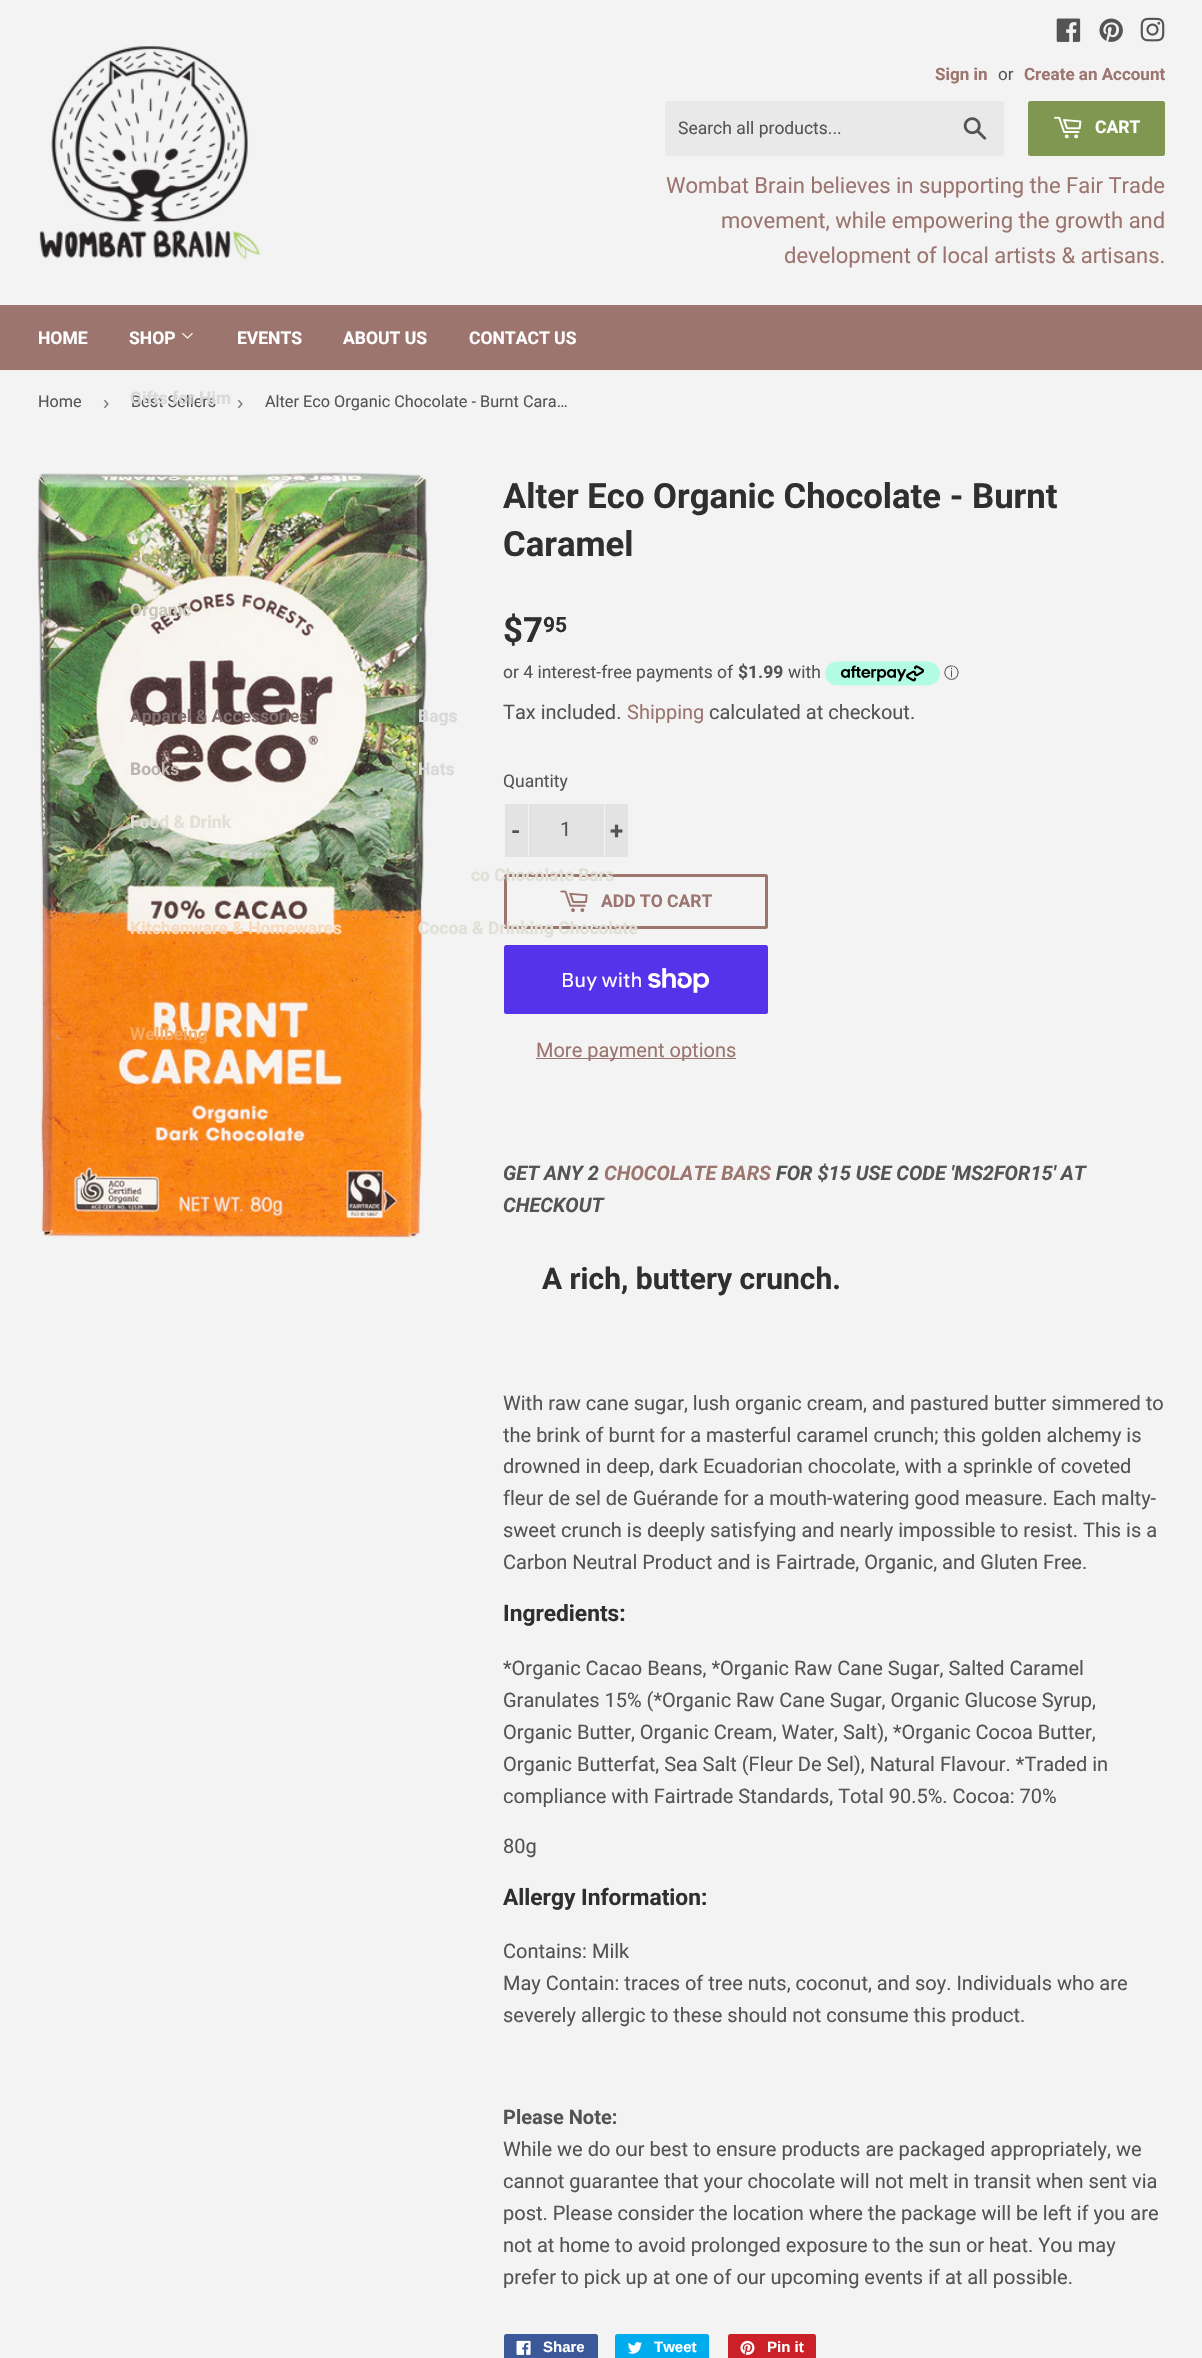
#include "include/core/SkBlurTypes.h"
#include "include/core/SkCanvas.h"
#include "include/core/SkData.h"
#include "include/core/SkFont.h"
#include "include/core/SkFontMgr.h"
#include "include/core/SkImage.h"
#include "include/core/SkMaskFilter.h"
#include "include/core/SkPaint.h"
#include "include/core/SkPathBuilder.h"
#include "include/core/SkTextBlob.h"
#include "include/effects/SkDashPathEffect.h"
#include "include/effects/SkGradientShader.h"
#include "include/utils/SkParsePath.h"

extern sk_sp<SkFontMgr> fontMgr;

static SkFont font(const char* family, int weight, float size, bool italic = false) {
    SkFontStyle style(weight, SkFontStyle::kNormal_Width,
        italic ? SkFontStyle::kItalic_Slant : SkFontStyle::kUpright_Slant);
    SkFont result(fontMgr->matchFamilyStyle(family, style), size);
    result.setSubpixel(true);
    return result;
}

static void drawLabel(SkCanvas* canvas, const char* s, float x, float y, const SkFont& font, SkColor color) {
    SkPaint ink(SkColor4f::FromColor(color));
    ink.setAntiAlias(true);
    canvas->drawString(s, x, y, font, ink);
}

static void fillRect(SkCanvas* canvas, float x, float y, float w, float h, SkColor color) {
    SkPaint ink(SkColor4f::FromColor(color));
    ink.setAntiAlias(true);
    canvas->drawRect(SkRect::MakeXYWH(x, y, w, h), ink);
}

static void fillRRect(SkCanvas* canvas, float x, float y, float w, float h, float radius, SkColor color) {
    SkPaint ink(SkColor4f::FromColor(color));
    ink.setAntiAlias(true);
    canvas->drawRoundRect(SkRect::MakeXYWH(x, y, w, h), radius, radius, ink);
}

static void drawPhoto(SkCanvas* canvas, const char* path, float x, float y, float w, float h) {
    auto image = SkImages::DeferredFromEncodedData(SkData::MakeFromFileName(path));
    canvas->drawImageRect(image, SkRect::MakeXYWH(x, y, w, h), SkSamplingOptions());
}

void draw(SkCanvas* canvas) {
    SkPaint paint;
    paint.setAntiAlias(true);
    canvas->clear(0xFFF3F3F3);
    drawPhoto(canvas, "assets/img1.png", 39, 46, 222, 213);
    drawPhoto(canvas, "assets/img2.png", 1056, 18, 25, 24);
    drawPhoto(canvas, "assets/img3.png", 1099, 18, 24, 24);
    drawPhoto(canvas, "assets/img4.png", 1140, 17, 25, 25);
    SkFont font1 = font("Roboto", 700, 17);
    drawLabel(canvas, "Sign in", 935, 80, font1, 0xFF9C756F);
    SkFont font2 = font("Roboto", 400, 17);
    drawLabel(canvas, "or", 998, 80, font2, 0xFF545454);
    drawLabel(canvas, "Create an Account", 1024, 80, font1, 0xFF9C756F);
    fillRRect(canvas, 665, 101, 339, 55, 2.5f, 0xFFE9E9E9);
    SkFont font3 = font("Roboto", 400, 17.5f);
    drawLabel(canvas, "Search all products...", 678, 134, font3, 0xFF545454);
    drawPhoto(canvas, "assets/img5.png", 963, 117, 24, 23);
    fillRRect(canvas, 1028, 101, 137, 55, 2.5f, 0xFF7F9750);
    drawPhoto(canvas, "assets/img6.png", 1054, 116, 28, 23);
    SkFont font4 = font("Roboto", 700, 17.5f);
    drawLabel(canvas, "CART", 1095, 133, font4, 0xFFFFFFFF);
    SkFont font5 = font("Roboto", 400, 22);
    drawLabel(canvas, "Wombat Brain believes in supporting the Fair Trade", 666, 193, font5, 0xFF9C756F);
    drawLabel(canvas, "movement, while empowering the growth and", 721, 228, font5, 0xFF9C756F);
    drawLabel(canvas, "development of local artists & artisans.", 784, 263, font5, 0xFF9C756F);
    fillRect(canvas, 0, 305, 1202, 65, 0xFF9C756F);
    drawLabel(canvas, "HOME", 38, 344, font4, 0xFFFFFFFF);
    drawLabel(canvas, "SHOP", 129, 344, font4, 0xFFFFFFFF);
    drawPhoto(canvas, "assets/img7.png", 182, 332, 11, 7);
    SkFont font6 = font("Roboto", 400, 16.25f);
    drawLabel(canvas, "Best Sellers", 131, 407, font6, 0xFF545454);
    drawLabel(canvas, "Gifts for Him", 130, 404, font4, 0xFFD9D9D9);
    drawPhoto(canvas, "assets/img8.png", 37, 472, 391, 766);
    drawLabel(canvas, "t", 212, 510, font4, 0xFF9CAD6A);
    drawLabel(canvas, "Best Sellers", 130, 563, font4, 0xFFAAA87A);
    drawLabel(canvas, "Organic", 130, 616, font4, 0xFFCCC8BC);
    drawLabel(canvas, "Apparel & Accessories", 130, 722, font4, 0xFF816F6D);
    drawLabel(canvas, "Bags", 418, 722, font4, 0xFFD9D9D9);
    drawLabel(canvas, "Hats", 418, 775, font4, 0xFFD9D9D9);
    drawLabel(canvas, "Books", 130, 775, font4, 0xFFBDB2AE);
    drawLabel(canvas, "Food & Drink", 130, 828, font4, 0xFFE0E0D6);
    paint.setStroke(true);
    paint.setStrokeWidth(3);
    paint.setColor(0xFF9C756F);
    canvas->drawRoundRect(SkRect::MakeXYWH(505.5f, 875.5f, 261, 52), 1, 1, paint);
    drawLabel(canvas, "co Chocolate Bars", 471, 881, font4, 0xFFE0E0D6);
    drawLabel(canvas, "Cocoa & Drinking Chocolate", 418, 934, font4, 0xFFE0E0D6);
    drawLabel(canvas, "y", 226, 881, font4, 0xFF718B67);
    drawLabel(canvas, "Kitchenware & Homewares", 130, 934, font4, 0xFFF8D9BC);
    drawLabel(canvas, "Wellbeing", 130, 1040, font4, 0xFFF7A960);
    drawLabel(canvas, "EVENTS", 237, 344, font4, 0xFFFFFFFF);
    drawLabel(canvas, "ABOUT US", 343, 344, font4, 0xFFFFFFFF);
    drawLabel(canvas, "CONTACT US", 469, 344, font4, 0xFFFFFFFF);
    drawLabel(canvas, "Home", 38, 407, font6, 0xFF545454);
    SkFont font7 = font("Liberation Sans", 400, 19);
    drawLabel(canvas, "›", 103, 409, font7, 0xFF767676);
    drawLabel(canvas, "›", 237, 409, font7, 0xFF767676);
    drawLabel(canvas, "Alter Eco Organic Chocolate - Burnt Cara…", 265, 407, font6, 0xFF545454);
    SkFont font8 = font("Roboto", 700, 34.7f);
    drawLabel(canvas, "Alter Eco Organic Chocolate - Burnt", 503, 508, font8, 0xFF2F2F2F);
    drawLabel(canvas, "Caramel", 503, 556, font8, 0xFF2F2F2F);
    drawLabel(canvas, "$7", 503, 642, font8, 0xFF2F2F2F);
    SkFont font9 = font("Roboto", 700, 21);
    drawLabel(canvas, "95", 543, 632, font9, 0xFF2F2F2F);
    drawLabel(canvas, "or 4 interest-free payments of", 503, 678, font3, 0xFF545454);
    drawLabel(canvas, "$1.99", 738, 678, font4, 0xFF545454);
    drawLabel(canvas, "with", 788, 678, font3, 0xFF545454);
    drawPhoto(canvas, "assets/img9.png", 825, 661, 115, 25);
    SkFont font10 = font("WenQuanYi Zen Hei", 500, 15);
    drawLabel(canvas, "ⓘ", 944, 678, font10, 0xFF545454);
    SkFont font11 = font("Roboto", 400, 20);
    drawLabel(canvas, "Tax included.", 503, 719, font11, 0xFF545454);
    drawLabel(canvas, "Shipping", 627, 719, font11, 0xFF9C756F);
    drawLabel(canvas, "calculated at checkout.", 709, 719, font11, 0xFF545454);
    drawLabel(canvas, "Quantity", 503, 787, font3, 0xFF545454);
    paint.setStroke(false);
    paint.setColor(0xFFE3E3E3);
    canvas->drawRoundRect(SkRect::MakeXYWH(504.5f, 803.5f, 124, 54), 2, 2, paint);
    paint.setStroke(true);
    paint.setStrokeWidth(1);
    paint.setColor(0xFFF3F3F3);
    canvas->drawRoundRect(SkRect::MakeXYWH(504.5f, 803.5f, 124, 54), 2, 2, paint);
    fillRect(canvas, 528, 803, 1, 55, 0xFFF3F3F3);
    SkFont font12 = font("Roboto", 700, 24);
    drawLabel(canvas, "-", 511, 839, font12, 0xFF545454);
    drawLabel(canvas, "1", 560, 836, font11, 0xFF545454);
    fillRect(canvas, 604, 803, 1, 55, 0xFFF3F3F3);
    drawLabel(canvas, "+", 610, 839, font12, 0xFF545454);
    drawPhoto(canvas, "assets/img10.png", 560, 890, 28, 23);
    drawLabel(canvas, "ADD TO CART", 601, 907, font4, 0xFF9C756F);
    fillRRect(canvas, 504, 945, 264, 69, 2.5f, 0xFF5433EB);
    SkFont font13 = font("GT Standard", 400, 20);
    drawLabel(canvas, "Buy with", 561, 987, font13, 0xFFFFFFFF);
    drawPhoto(canvas, "assets/img11.png", 648, 968, 62, 25);
    fillRect(canvas, 536, 1058, 200, 1, 0xFF9C756F);
    drawLabel(canvas, "More payment options", 536, 1057, font11, 0xFF9C756F);
    SkFont font14 = font("Roboto", 700, 20, true);
    drawLabel(canvas, "GET ANY 2", 503, 1180, font14, 0xFF545454);
    drawLabel(canvas, "CHOCOLATE BARS", 604, 1180, font14, 0xFF9C756F);
    drawLabel(canvas, "FOR $15 USE CODE 'MS2FOR15' AT", 776, 1180, font14, 0xFF545454);
    drawLabel(canvas, "CHECKOUT", 503, 1212, font14, 0xFF545454);
    SkFont font15 = font("Roboto", 700, 30);
    drawLabel(canvas, "A rich, buttery crunch.", 542, 1289, font15, 0xFF2F2F2F);
    drawLabel(canvas, "With raw cane sugar, lush organic cream, and pastured butter simmered to", 503, 1410, font11, 0xFF545454);
    drawLabel(canvas, "the brink of burnt for a masterful caramel crunch; this golden alchemy is", 503, 1442, font11, 0xFF545454);
    drawLabel(canvas, "drowned in deep, dark Ecuadorian chocolate, with a sprinkle of coveted", 503, 1473, font11, 0xFF545454);
    drawLabel(canvas, "fleur de sel de Guérande for a mouth-watering good measure. Each malty-", 503, 1505, font11, 0xFF545454);
    drawLabel(canvas, "sweet crunch is deeply satisfying and nearly impossible to resist. This is a", 503, 1537, font11, 0xFF545454);
    drawLabel(canvas, "Carbon Neutral Product and is Fairtrade, Organic, and Gluten Free.", 503, 1569, font11, 0xFF545454);
    SkFont font16 = font("Roboto", 700, 22.75f);
    drawLabel(canvas, "Ingredients:", 503, 1621, font16, 0xFF2F2F2F);
    drawLabel(canvas, "*Organic Cacao Beans, *Organic Raw Cane Sugar, Salted Caramel", 503, 1675, font11, 0xFF545454);
    drawLabel(canvas, "Granulates 15% (*Organic Raw Cane Sugar, Organic Glucose Syrup,", 503, 1707, font11, 0xFF545454);
    drawLabel(canvas, "Organic Butter, Organic Cream, Water, Salt), *Organic Cocoa Butter,", 503, 1739, font11, 0xFF545454);
    drawLabel(canvas, "Organic Butterfat, Sea Salt (Fleur De Sel), Natural Flavour. *Traded in", 503, 1771, font11, 0xFF545454);
    drawLabel(canvas, "compliance with Fairtrade Standards, Total 90.5%. Cocoa: 70%", 503, 1803, font11, 0xFF545454);
    drawLabel(canvas, "80g", 503, 1853, font11, 0xFF545454);
    drawLabel(canvas, "Allergy Information:", 503, 1905, font16, 0xFF2F2F2F);
    drawLabel(canvas, "Contains: Milk", 503, 1958, font11, 0xFF545454);
    drawLabel(canvas, "May Contain: traces of tree nuts, coconut, and soy. Individuals who are", 503, 1990, font11, 0xFF545454);
    drawLabel(canvas, "severely allergic to these should not consume this product.", 503, 2022, font11, 0xFF545454);
    SkFont font17 = font("Roboto", 700, 20);
    drawLabel(canvas, "Please Note:", 503, 2124, font17, 0xFF545454);
    drawLabel(canvas, "While we do our best to ensure products are packaged appropriately, we", 503, 2156, font11, 0xFF545454);
    drawLabel(canvas, "cannot guarantee that your chocolate will not melt in transit when sent via", 503, 2188, font11, 0xFF545454);
    drawLabel(canvas, "post. Please consider the location where the package will be left if you are", 503, 2220, font11, 0xFF545454);
    drawLabel(canvas, "not at home to avoid prolonged exposure to the sun or heat. You may", 503, 2252, font11, 0xFF545454);
    drawLabel(canvas, "prefer to pick up at one of our upcoming events if at all possible.", 503, 2284, font11, 0xFF545454);
    fillRRect(canvas, 504, 2334, 94, 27, 2.5f, 0xFF3B5998);
    drawPhoto(canvas, "assets/img12.png", 516, 2340, 15, 15);
    SkFont font18 = font("Liberation Sans", 700, 15);
    drawLabel(canvas, "Share", 543, 2352, font18, 0xFFFFFFFF);
    fillRRect(canvas, 615, 2334, 94, 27, 2.5f, 0xFF00ACED);
    drawPhoto(canvas, "assets/img13.png", 627, 2342, 15, 12);
    drawLabel(canvas, "Tweet", 654, 2352, font18, 0xFFFFFFFF);
    fillRRect(canvas, 728, 2334, 88, 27, 2.5f, 0xFFCB2027);
    drawPhoto(canvas, "assets/img14.png", 740, 2340, 15, 15);
    drawLabel(canvas, "Pin it", 767, 2352, font18, 0xFFFFFFFF);
}
